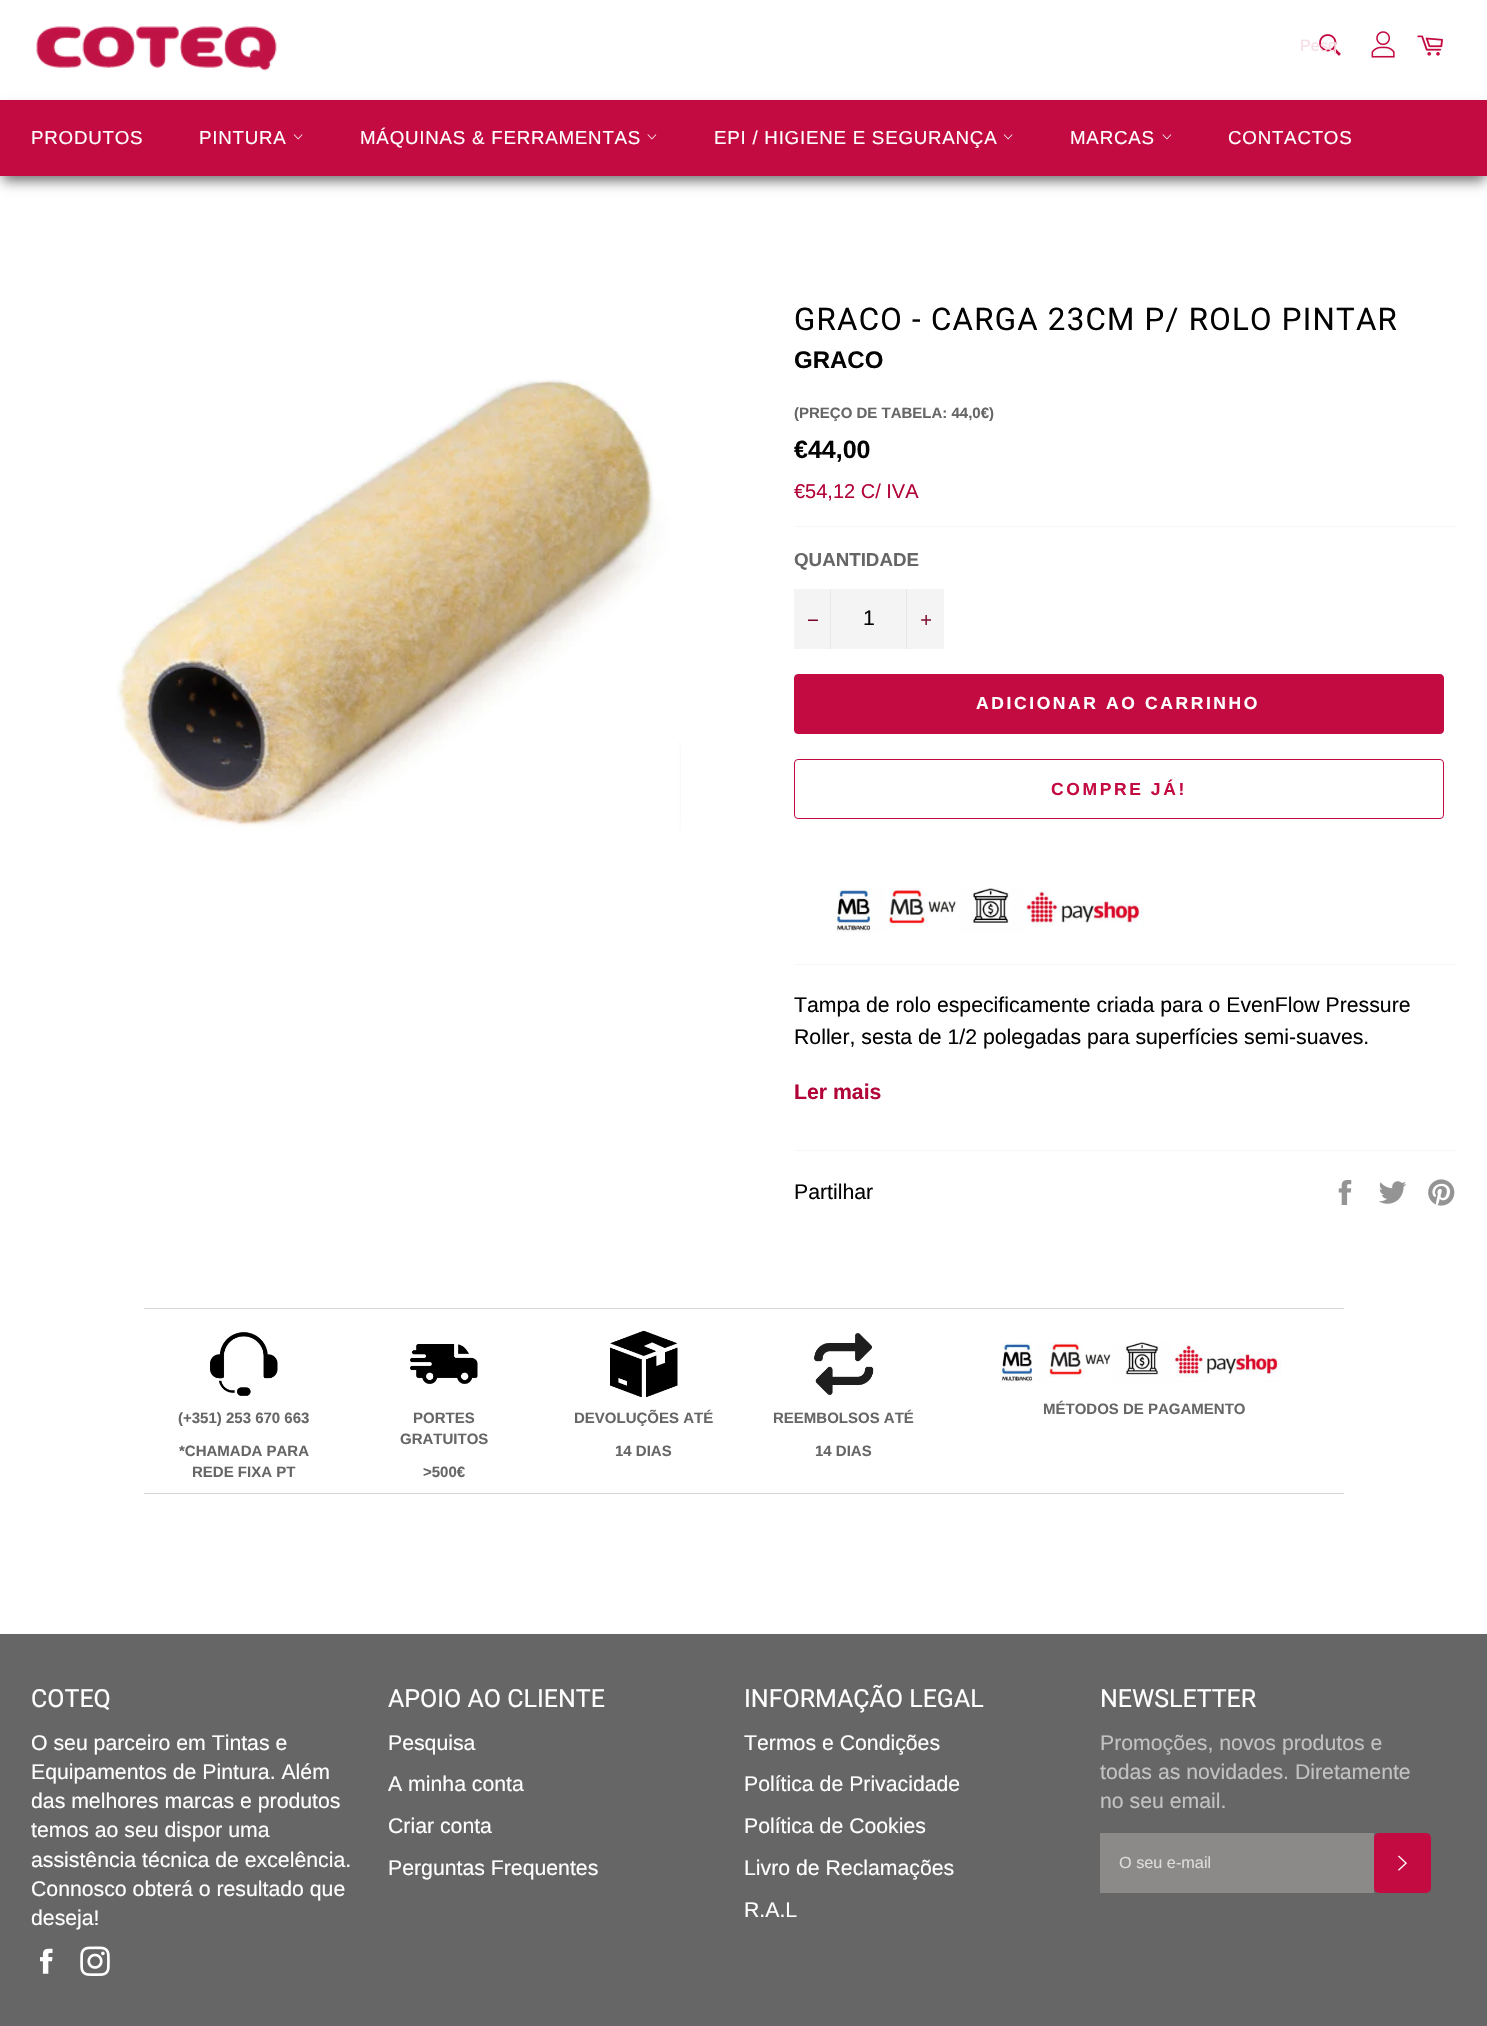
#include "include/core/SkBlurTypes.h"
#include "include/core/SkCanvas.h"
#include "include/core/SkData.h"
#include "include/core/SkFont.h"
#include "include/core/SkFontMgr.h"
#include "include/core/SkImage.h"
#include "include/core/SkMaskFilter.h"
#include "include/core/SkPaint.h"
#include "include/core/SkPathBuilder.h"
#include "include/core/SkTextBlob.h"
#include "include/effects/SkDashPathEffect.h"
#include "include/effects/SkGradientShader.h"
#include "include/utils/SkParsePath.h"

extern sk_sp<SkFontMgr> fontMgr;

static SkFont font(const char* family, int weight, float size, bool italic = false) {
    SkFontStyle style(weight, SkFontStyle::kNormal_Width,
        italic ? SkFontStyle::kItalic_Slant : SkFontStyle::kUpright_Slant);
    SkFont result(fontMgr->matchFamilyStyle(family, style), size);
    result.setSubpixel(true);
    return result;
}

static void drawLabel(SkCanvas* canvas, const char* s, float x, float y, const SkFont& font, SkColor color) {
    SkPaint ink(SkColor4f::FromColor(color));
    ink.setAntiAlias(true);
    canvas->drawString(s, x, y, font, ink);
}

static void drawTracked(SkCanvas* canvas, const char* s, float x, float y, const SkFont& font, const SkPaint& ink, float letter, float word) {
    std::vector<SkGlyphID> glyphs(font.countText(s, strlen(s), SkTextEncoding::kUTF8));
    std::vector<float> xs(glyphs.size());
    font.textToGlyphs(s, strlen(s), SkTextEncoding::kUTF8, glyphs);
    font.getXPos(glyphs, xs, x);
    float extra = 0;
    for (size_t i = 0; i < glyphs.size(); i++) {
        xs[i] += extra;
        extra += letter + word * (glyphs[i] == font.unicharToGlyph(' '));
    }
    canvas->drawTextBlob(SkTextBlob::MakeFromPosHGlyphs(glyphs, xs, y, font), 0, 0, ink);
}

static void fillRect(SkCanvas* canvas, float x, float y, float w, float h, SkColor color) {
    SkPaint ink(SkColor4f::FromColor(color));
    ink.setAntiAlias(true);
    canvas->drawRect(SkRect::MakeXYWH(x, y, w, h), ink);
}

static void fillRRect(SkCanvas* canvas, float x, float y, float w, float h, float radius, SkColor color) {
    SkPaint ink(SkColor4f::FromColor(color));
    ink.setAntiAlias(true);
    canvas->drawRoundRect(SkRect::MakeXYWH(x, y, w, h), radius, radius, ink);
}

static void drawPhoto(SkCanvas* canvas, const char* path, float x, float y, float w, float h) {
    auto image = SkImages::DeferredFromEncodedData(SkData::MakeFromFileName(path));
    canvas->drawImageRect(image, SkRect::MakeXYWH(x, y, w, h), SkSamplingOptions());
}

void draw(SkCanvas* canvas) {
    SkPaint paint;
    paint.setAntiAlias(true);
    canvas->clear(0xFFFFFFFF);
    drawPhoto(canvas, "assets/img1.png", 36, 26, 241, 45);
    drawPhoto(canvas, "assets/img2.png", 1319, 34, 22, 22);
    SkFont font1 = font("Liberation Sans", 400, 16.25f);
    drawLabel(canvas, "Pesq", 1300, 51, font1, 0xFFF7DDE5);
    drawPhoto(canvas, "assets/img3.png", 1371, 31, 24, 27);
    drawPhoto(canvas, "assets/img4.png", 1417, 35, 26, 21);
    paint.setColor(0x8C000000);
    paint.setMaskFilter(SkMaskFilter::MakeBlur(kNormal_SkBlurStyle, 6));
    canvas->drawRect(SkRect::MakeXYWH(3, 110, 1482, 71), paint);
    paint.setMaskFilter(nullptr);
    fillRect(canvas, 0, 100, 1487, 76, 0xFFC30A41);
    SkFont font2 = font("Liberation Sans", 400, 18.75f);
    paint.setColor(0xFFFFFFFF);
    drawTracked(canvas, "PRODUTOS", 31, 144, font2, paint, 0.75f, 0);
    drawTracked(canvas, "PINTURA", 199, 144, font2, paint, 0.75f, 0);
    drawPhoto(canvas, "assets/img5.png", 293, 134, 10, 6);
    drawTracked(canvas, "MÁQUINAS & FERRAMENTAS", 360, 144, font2, paint, 0.75f, 0);
    drawPhoto(canvas, "assets/img6.png", 647, 134, 10, 6);
    drawTracked(canvas, "EPI / HIGIENE E SEGURANÇA", 714, 144, font2, paint, 0.75f, 0);
    drawPhoto(canvas, "assets/img5.png", 1003, 134, 10, 6);
    drawTracked(canvas, "MARCAS", 1070, 144, font2, paint, 0.75f, 0);
    drawPhoto(canvas, "assets/img6.png", 1162, 134, 10, 6);
    drawTracked(canvas, "CONTACTOS", 1228, 144, font2, paint, 0.75f, 0);
    drawPhoto(canvas, "assets/img7.png", 116, 379, 565, 452);
    SkFont font3 = font("Roboto", 400, 31.25f);
    paint.setColor(0xFF030303);
    drawTracked(canvas, "GRACO - CARGA 23CM P/ ROLO PINTAR", 794, 330, font3, paint, 1.25f, 0);
    SkFont font4 = font("Liberation Sans", 700, 24);
    drawLabel(canvas, "GRACO", 794, 368, font4, 0xFF030303);
    SkFont font5 = font("Liberation Sans", 700, 15);
    drawLabel(canvas, "(PREÇO DE TABELA: 44,0€)", 794, 418, font5, 0xFF666666);
    SkFont font6 = font("Liberation Sans", 700, 25);
    drawLabel(canvas, "€44,00", 794, 458, font6, 0xFF030303);
    SkFont font7 = font("Liberation Sans", 400, 20);
    drawLabel(canvas, "€54,12 C/ IVA", 794, 498, font7, 0xFFB20439);
    fillRect(canvas, 794, 526, 662, 1, 0xFFF7F7F7);
    SkFont font8 = font("Liberation Sans", 700, 18.75f);
    drawLabel(canvas, "QUANTIDADE", 794, 566, font8, 0xFF666666);
    fillRect(canvas, 794, 589, 150, 60, 0xFFF4F4F4);
    fillRect(canvas, 830, 589, 1, 60, 0xFFE7E7E7);
    drawPhoto(canvas, "assets/img8.png", 808, 619, 10, 2);
    SkFont font9 = font("Liberation Sans", 400, 21.25f);
    drawLabel(canvas, "1", 863, 625, font9, 0xFF030303);
    fillRect(canvas, 906, 589, 1, 60, 0xFFE7E7E7);
    drawPhoto(canvas, "assets/img9.png", 921, 615, 10, 10);
    paint.setColor(0xFFC30A41);
    canvas->drawRoundRect(SkRect::MakeXYWH(794.5f, 674.5f, 649, 59), 3.5f, 3.5f, paint);
    paint.setStroke(true);
    paint.setStrokeWidth(1);
    canvas->drawRoundRect(SkRect::MakeXYWH(794.5f, 674.5f, 649, 59), 3.5f, 3.5f, paint);
    SkFont font10 = font("Liberation Sans", 700, 17.5f);
    paint.setStroke(false);
    paint.setColor(0xFFFFFFFF);
    drawTracked(canvas, "ADICIONAR AO CARRINHO", 976, 709, font10, paint, 2.6f, 0);
    paint.setStroke(true);
    paint.setColor(0xFFC30A41);
    canvas->drawRoundRect(SkRect::MakeXYWH(794.5f, 759.5f, 649, 59), 3.5f, 3.5f, paint);
    paint.setStroke(false);
    drawTracked(canvas, "COMPRE JÁ!", 1051, 795, font10, paint, 2.6f, 0);
    drawPhoto(canvas, "assets/img10.png", 834, 888, 310, 45);
    fillRect(canvas, 794, 964, 662, 1, 0xFFF7F7F7);
    drawLabel(canvas, "Tampa de rolo especificamente criada para o EvenFlow Pressure", 794, 1012, font9, 0xFF030303);
    drawLabel(canvas, "Roller, sesta de 1/2 polegadas para superfícies semi-suaves.", 794, 1044, font9, 0xFF030303);
    SkFont font11 = font("Liberation Sans", 700, 21.25f);
    drawLabel(canvas, "Ler mais", 794, 1099, font11, 0xFFB20439);
    fillRect(canvas, 794, 1150, 662, 1, 0xFFF7F7F7);
    drawLabel(canvas, "Partilhar", 794, 1199, font9, 0xFF030303);
    drawPhoto(canvas, "assets/img11.png", 1338, 1180, 14, 25);
    drawPhoto(canvas, "assets/img12.png", 1379, 1181, 28, 23);
    drawPhoto(canvas, "assets/img13.png", 1428, 1179, 27, 27);
    fillRect(canvas, 144, 1308, 1200, 1, 0xFFD5D5D5);
    fillRect(canvas, 144, 1493, 1200, 1, 0xFFD5D5D5);
    drawPhoto(canvas, "assets/img14.png", 999, 1342, 283, 41);
    drawLabel(canvas, "MÉTODOS DE PAGAMENTO", 1043, 1414, font5, 0xFF666666);
    drawPhoto(canvas, "assets/img15.png", 210, 1332, 68, 64);
    drawLabel(canvas, "(+351) 253 670 663", 178, 1423, font5, 0xFF666666);
    drawLabel(canvas, "*CHAMADA PARA", 179, 1456, font5, 0xFF666666);
    drawLabel(canvas, "REDE FIXA PT", 192, 1477, font5, 0xFF666666);
    drawPhoto(canvas, "assets/img16.png", 410, 1344, 68, 40);
    drawLabel(canvas, "PORTES", 413, 1423, font5, 0xFF666666);
    drawLabel(canvas, "GRATUITOS", 400, 1444, font5, 0xFF666666);
    drawLabel(canvas, ">500€", 423, 1477, font5, 0xFF666666);
    drawPhoto(canvas, "assets/img17.png", 610, 1330, 68, 68);
    drawLabel(canvas, "DEVOLUÇÕES ATÉ", 574, 1423, font5, 0xFF666666);
    drawLabel(canvas, "14 DIAS", 615, 1456, font5, 0xFF666666);
    drawPhoto(canvas, "assets/img18.png", 814, 1333, 60, 62);
    drawLabel(canvas, "REEMBOLSOS ATÉ", 773, 1423, font5, 0xFF666666);
    drawLabel(canvas, "14 DIAS", 815, 1456, font5, 0xFF666666);
    fillRect(canvas, 0, 1634, 1487, 392, 0xFF666666);
    SkFont font12 = font("Roboto", 400, 25);
    drawLabel(canvas, "COTEQ", 31, 1707, font12, 0xFFFFFFFF);
    drawLabel(canvas, "O seu parceiro em Tintas e", 31, 1750, font9, 0xFFFFFFFF);
    drawLabel(canvas, "Equipamentos de Pintura. Além", 31, 1779, font9, 0xFFFFFFFF);
    drawLabel(canvas, "das melhores marcas e produtos", 31, 1808, font9, 0xFFFFFFFF);
    drawLabel(canvas, "temos ao seu dispor uma", 31, 1837, font9, 0xFFFFFFFF);
    drawLabel(canvas, "assistência técnica de excelência.", 31, 1867, font9, 0xFFFFFFFF);
    drawLabel(canvas, "Connosco obterá o resultado que", 31, 1896, font9, 0xFFFFFFFF);
    drawLabel(canvas, "deseja!", 31, 1925, font9, 0xFFFFFFFF);
    drawPhoto(canvas, "assets/img19.png", 40, 1948, 13, 26);
    drawPhoto(canvas, "assets/img20.png", 80, 1946, 30, 30);
    drawLabel(canvas, "APOIO AO CLIENTE", 388, 1707, font12, 0xFFFFFFFF);
    drawLabel(canvas, "Pesquisa", 388, 1750, font9, 0xFFFFFFFF);
    drawLabel(canvas, "A minha conta", 388, 1791, font9, 0xFFFFFFFF);
    drawLabel(canvas, "Criar conta", 388, 1833, font9, 0xFFFFFFFF);
    drawLabel(canvas, "Perguntas Frequentes", 388, 1875, font9, 0xFFFFFFFF);
    drawLabel(canvas, "INFORMAÇÃO LEGAL", 744, 1707, font12, 0xFFFFFFFF);
    drawLabel(canvas, "Termos e Condições", 744, 1750, font9, 0xFFFFFFFF);
    drawLabel(canvas, "Política de Privacidade", 744, 1791, font9, 0xFFFFFFFF);
    drawLabel(canvas, "Política de Cookies", 744, 1833, font9, 0xFFFFFFFF);
    drawLabel(canvas, "Livro de Reclamações", 744, 1875, font9, 0xFFFFFFFF);
    drawLabel(canvas, "R.A.L", 744, 1917, font9, 0xFFFFFFFF);
    drawLabel(canvas, "NEWSLETTER", 1100, 1707, font12, 0xFFFFFFFF);
    drawLabel(canvas, "Promoções, novos produtos e", 1100, 1750, font9, 0xFFC2C2C2);
    drawLabel(canvas, "todas as novidades. Diretamente", 1100, 1779, font9, 0xFFC2C2C2);
    drawLabel(canvas, "no seu email.", 1100, 1808, font9, 0xFFC2C2C2);
    fillRect(canvas, 1100, 1833, 274, 60, 0xFF8C8989);
    drawLabel(canvas, "O seu e-mail", 1119, 1868, font1, 0xFFDDDCDC);
    fillRRect(canvas, 1374, 1833, 57, 60, 5, 0xFFC30A41);
    drawPhoto(canvas, "assets/img21.png", 1398, 1855, 9, 16);
}
